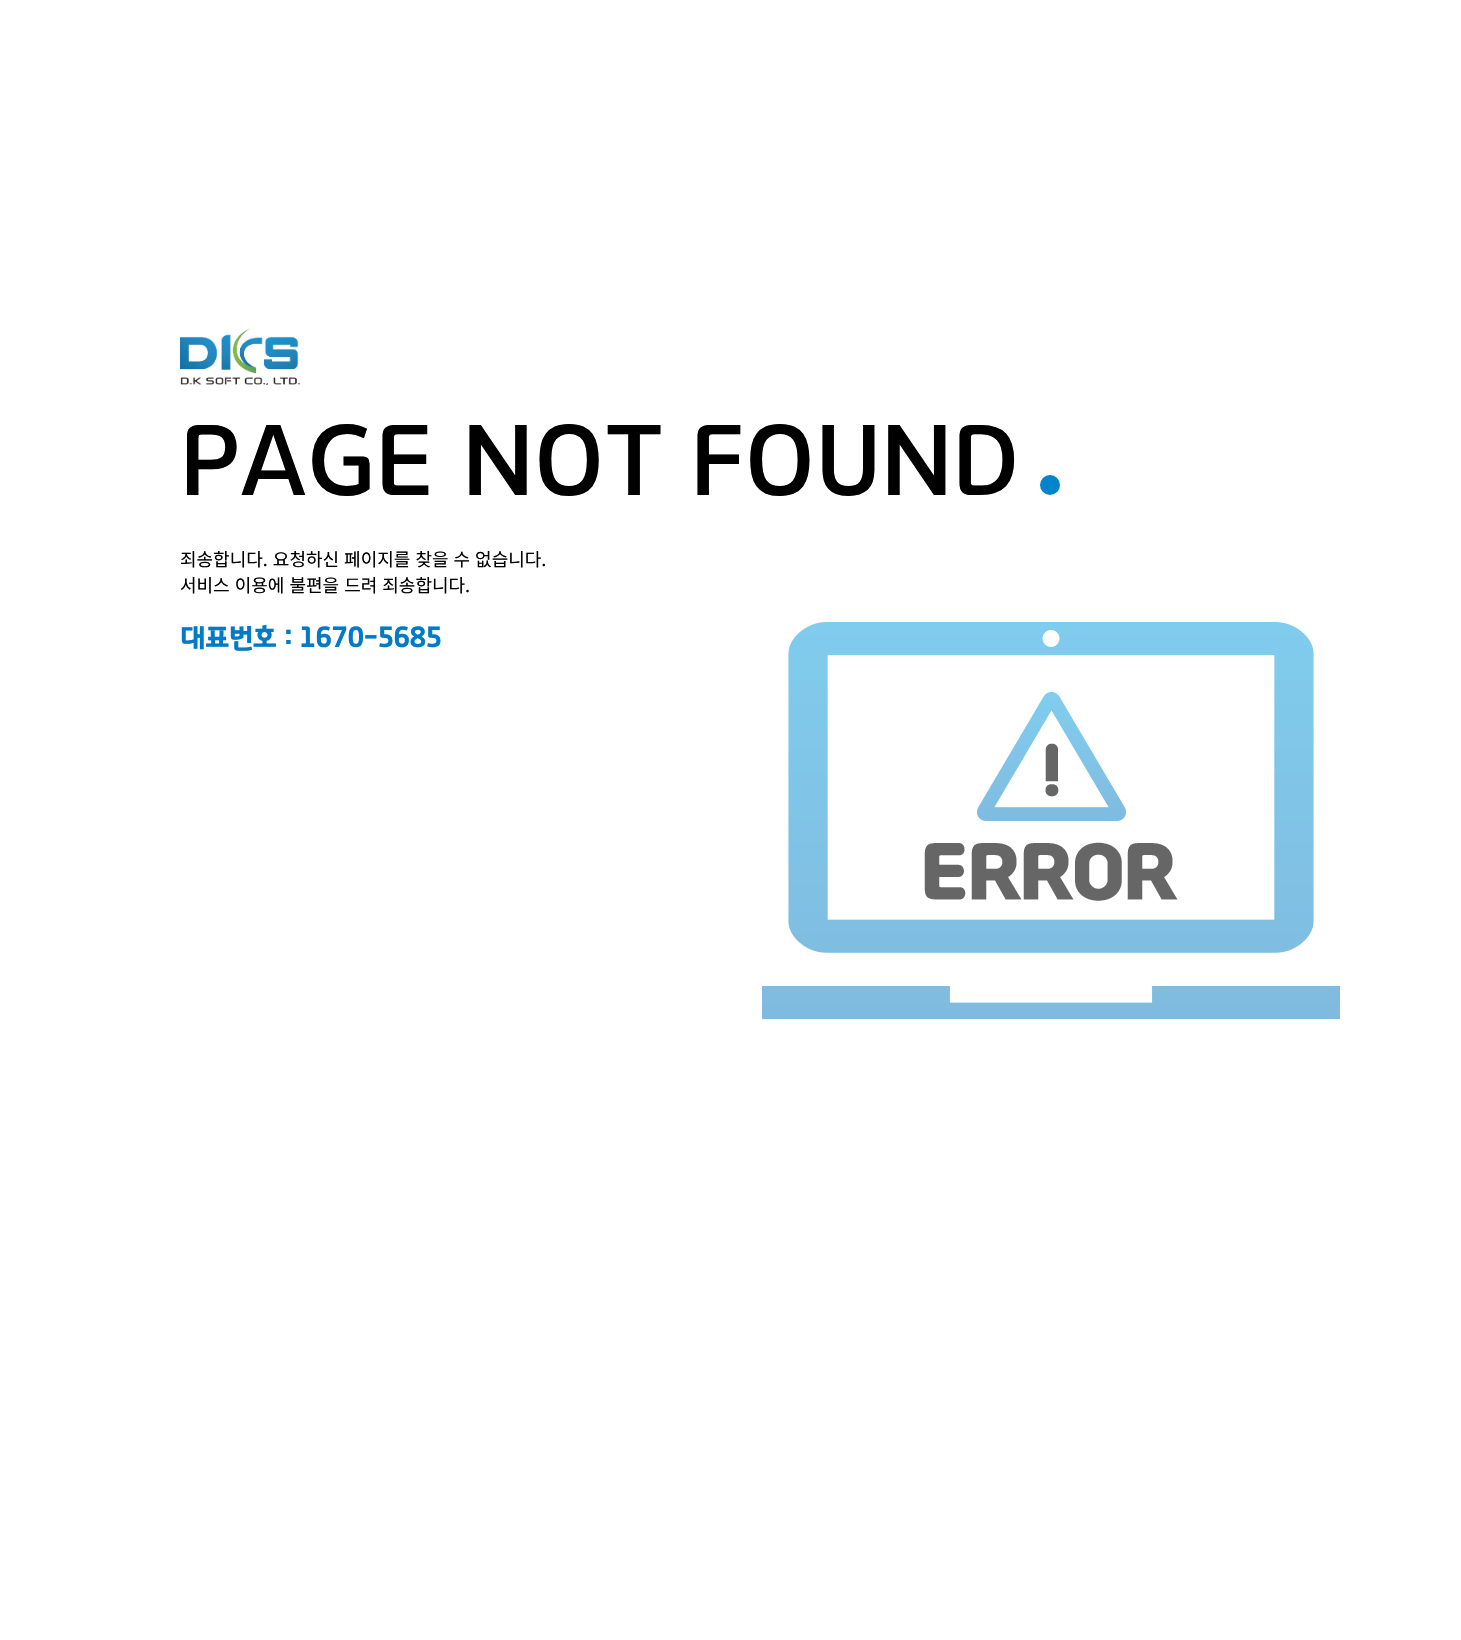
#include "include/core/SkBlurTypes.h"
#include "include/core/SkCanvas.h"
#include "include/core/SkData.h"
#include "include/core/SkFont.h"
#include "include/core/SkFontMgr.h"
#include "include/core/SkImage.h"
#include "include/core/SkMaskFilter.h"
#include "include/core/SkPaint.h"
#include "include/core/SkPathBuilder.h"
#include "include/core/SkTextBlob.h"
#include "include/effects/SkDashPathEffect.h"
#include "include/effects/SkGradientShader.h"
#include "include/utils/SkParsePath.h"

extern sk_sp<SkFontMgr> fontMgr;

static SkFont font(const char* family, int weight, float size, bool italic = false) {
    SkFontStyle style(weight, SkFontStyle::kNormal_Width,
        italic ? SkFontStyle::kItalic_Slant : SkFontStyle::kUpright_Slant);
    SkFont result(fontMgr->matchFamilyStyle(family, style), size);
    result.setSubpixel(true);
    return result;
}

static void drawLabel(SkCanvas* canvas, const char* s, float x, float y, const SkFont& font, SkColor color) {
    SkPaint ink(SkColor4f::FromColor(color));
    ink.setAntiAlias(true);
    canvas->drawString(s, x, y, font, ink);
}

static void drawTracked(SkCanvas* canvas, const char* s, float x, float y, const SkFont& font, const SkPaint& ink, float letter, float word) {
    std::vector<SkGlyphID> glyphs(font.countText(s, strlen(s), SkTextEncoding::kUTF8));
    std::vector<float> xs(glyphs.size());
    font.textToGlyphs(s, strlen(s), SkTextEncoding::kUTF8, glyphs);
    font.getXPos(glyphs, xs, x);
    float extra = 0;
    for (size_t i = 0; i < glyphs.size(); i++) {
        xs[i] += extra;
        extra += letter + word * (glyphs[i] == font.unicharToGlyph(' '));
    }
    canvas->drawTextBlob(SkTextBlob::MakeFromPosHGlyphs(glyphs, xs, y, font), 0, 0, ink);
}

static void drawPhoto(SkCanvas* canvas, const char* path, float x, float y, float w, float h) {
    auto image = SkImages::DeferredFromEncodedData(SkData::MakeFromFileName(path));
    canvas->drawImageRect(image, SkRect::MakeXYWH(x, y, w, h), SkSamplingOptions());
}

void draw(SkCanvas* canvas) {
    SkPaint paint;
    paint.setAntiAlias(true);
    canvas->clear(0xFFFFFFFF);
    drawPhoto(canvas, "assets/img1.png", 762, 622, 578, 397);
    drawPhoto(canvas, "assets/img2.png", 180, 328, 120, 57);
    SkFont font1 = font("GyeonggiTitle", 500, 100);
    drawLabel(canvas, "PAGE NOT FOUND", 180, 495, font1, 0xFF000000);
    paint.setColor(0xFF0184C9);
    canvas->drawCircle(1050, 485, 10, paint);
    SkFont font2 = font("Noto Sans KR", 400, 18);
    paint.setColor(0xFF000000);
    drawTracked(canvas, "죄송합니다. 요청하신 페이지를 찾을 수 없습니다.", 180, 566, font2, paint, 0, 1);
    drawTracked(canvas, "서비스 이용에 불편을 드려 죄송합니다.", 180, 592, font2, paint, 0, 1);
    SkFont font3 = font("GyeonggiTitle", 700, 28);
    drawLabel(canvas, "대표번호 : 1670-5685", 180, 647, font3, 0xFF017BC5);
}
